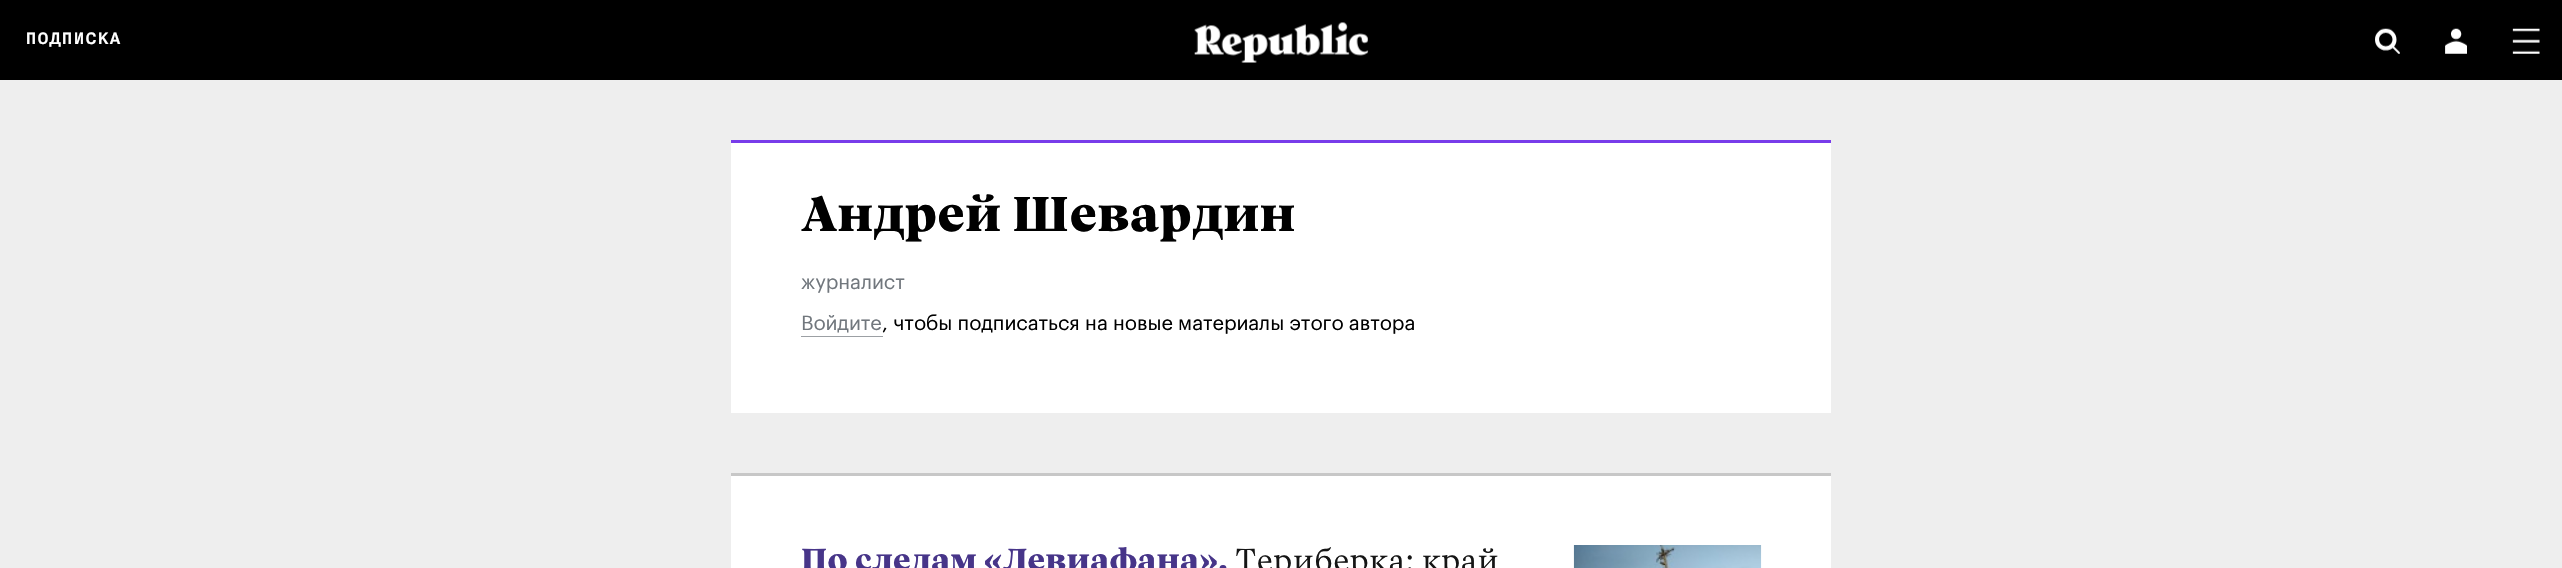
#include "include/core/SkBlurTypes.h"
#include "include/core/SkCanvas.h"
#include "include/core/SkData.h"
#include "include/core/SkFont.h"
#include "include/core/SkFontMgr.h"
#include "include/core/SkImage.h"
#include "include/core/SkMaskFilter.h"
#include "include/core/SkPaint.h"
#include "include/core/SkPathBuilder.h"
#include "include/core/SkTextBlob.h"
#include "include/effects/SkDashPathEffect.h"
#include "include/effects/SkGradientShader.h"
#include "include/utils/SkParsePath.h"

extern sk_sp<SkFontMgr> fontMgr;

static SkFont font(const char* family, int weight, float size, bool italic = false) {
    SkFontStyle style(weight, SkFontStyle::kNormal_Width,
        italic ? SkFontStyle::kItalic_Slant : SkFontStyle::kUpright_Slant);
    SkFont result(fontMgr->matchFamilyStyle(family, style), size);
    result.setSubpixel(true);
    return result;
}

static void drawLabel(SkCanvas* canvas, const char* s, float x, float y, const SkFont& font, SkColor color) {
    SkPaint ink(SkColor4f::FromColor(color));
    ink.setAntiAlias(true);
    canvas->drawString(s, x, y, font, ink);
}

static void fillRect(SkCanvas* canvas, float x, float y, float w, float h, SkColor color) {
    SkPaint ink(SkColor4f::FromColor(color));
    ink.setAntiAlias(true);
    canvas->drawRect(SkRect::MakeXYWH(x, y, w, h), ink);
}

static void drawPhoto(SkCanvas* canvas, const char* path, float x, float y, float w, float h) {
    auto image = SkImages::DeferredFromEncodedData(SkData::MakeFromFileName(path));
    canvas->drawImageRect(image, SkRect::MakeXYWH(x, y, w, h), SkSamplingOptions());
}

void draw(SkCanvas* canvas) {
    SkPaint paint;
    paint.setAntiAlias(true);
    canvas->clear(0xFFEEEEEE);
    fillRect(canvas, 0, 0, 2562, 80, 0xFF000000);
    SkFont font1 = font("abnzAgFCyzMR", 500, 20);
    drawLabel(canvas, "ПОДПИСКА", 25, 44, font1, 0xFFFFFFFF);
    drawPhoto(canvas, "assets/img1.png", 1194, 22, 175, 41);
    drawPhoto(canvas, "assets/img2.png", 2375, 28, 25, 26);
    drawPhoto(canvas, "assets/img3.png", 2445, 28, 22, 26);
    drawPhoto(canvas, "assets/img4.png", 2512, 28, 28, 26);
    fillRect(canvas, 731, 143, 1100, 270, 0xFFFFFFFF);
    fillRect(canvas, 731, 140, 1100, 3, 0xFF783CEA);
    SkFont font2 = font("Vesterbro", 800, 50);
    drawLabel(canvas, "Андрей Шевардин", 801, 231, font2, 0xFF000000);
    SkFont font3 = font("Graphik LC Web", 400, 20);
    drawLabel(canvas, "журналист", 801, 289, font3, 0xFF71777D);
    drawLabel(canvas, "Войдите", 801, 330, font3, 0xFF71777D);
    fillRect(canvas, 801, 336, 82, 1, 0xFF9CA0A4);
    drawLabel(canvas, ", чтобы подписаться на новые материалы этого автора", 882, 330, font3, 0xFF000000);
    fillRect(canvas, 731, 476, 1100, 92, 0xFFFFFFFF);
    fillRect(canvas, 731, 473, 1100, 3, 0xFFC7C7C7);
    SkFont font4 = font("Vesterbro", 800, 32.5f);
    drawLabel(canvas, "По следам «Левиафана».", 801, 571, font4, 0xFF473589);
    SkFont font5 = font("Vesterbro", 300, 32.5f);
    drawLabel(canvas, "Териберка: край", 1235, 571, font5, 0xFF151515);
    drawPhoto(canvas, "assets/img5.png", 1573, 545, 189, 23);
}
